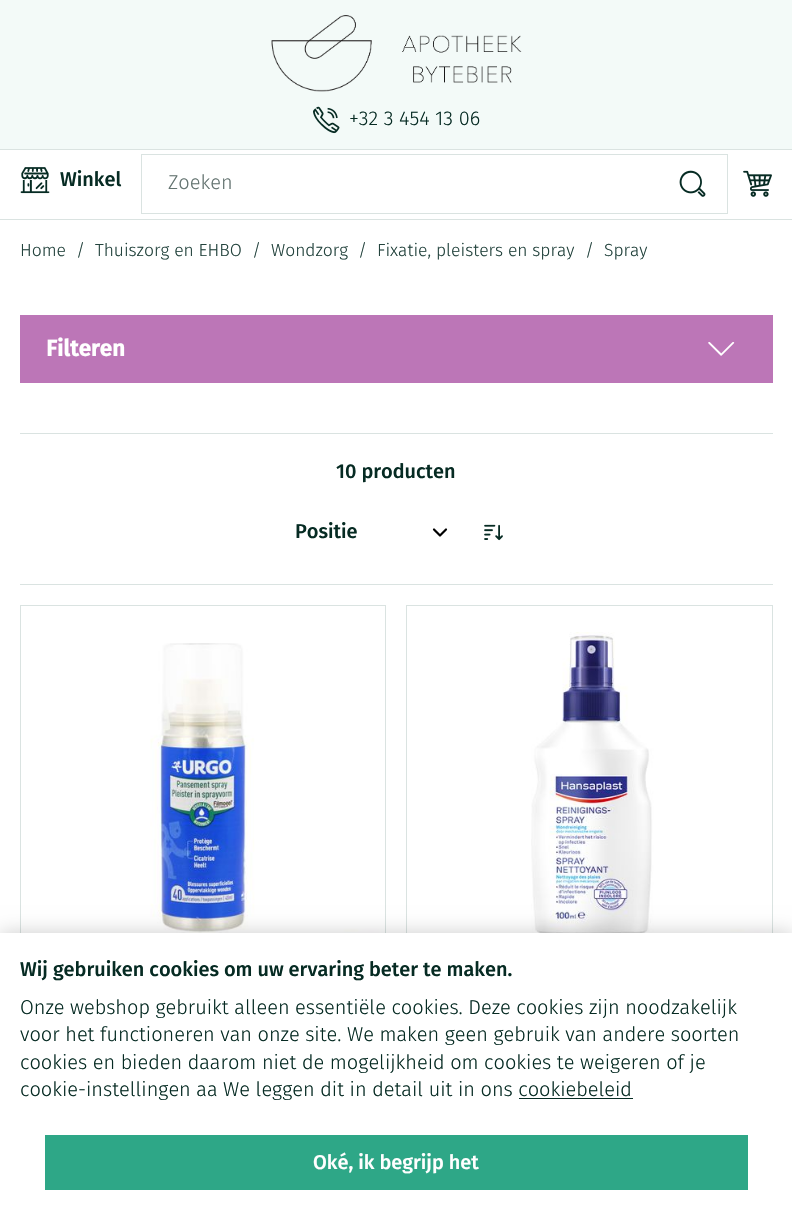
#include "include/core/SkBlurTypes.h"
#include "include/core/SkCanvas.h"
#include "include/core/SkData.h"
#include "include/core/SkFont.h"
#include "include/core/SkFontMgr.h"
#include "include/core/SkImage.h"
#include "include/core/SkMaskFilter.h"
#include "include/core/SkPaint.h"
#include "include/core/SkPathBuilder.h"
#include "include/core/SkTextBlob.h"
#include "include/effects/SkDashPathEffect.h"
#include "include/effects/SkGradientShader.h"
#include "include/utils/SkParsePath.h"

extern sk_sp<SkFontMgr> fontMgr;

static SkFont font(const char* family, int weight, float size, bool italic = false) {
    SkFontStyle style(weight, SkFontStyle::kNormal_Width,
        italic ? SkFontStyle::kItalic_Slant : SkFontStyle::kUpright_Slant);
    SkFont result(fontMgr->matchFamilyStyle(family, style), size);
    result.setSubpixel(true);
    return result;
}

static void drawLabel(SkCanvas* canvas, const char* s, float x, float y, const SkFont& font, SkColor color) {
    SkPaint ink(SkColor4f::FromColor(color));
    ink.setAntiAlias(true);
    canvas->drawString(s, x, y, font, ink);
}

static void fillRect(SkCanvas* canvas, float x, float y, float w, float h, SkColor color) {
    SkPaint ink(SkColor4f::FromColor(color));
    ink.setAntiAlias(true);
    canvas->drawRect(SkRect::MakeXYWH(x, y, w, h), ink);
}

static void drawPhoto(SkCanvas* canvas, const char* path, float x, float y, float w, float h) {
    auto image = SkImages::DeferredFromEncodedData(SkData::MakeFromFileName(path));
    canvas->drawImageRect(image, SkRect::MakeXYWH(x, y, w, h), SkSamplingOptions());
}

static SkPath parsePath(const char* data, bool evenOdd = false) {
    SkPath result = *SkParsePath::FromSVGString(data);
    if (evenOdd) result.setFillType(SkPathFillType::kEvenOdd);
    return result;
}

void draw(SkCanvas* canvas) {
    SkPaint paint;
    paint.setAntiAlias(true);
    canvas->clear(0xFFFFFFFF);
    fillRect(canvas, 0, 0, 792, 149, 0xFFF3FAF8);
    drawPhoto(canvas, "assets/img1.png", 271, 15, 251, 77);
    drawPhoto(canvas, "assets/img2.png", 313, 106, 27, 28);
    SkFont font1 = font("Fira Sans", 300, 20);
    drawLabel(canvas, "+32 3 454 13 06", 349, 125, font1, 0xFF062B23);
    fillRect(canvas, 0, 149, 792, 1, 0xFFDAE3E1);
    fillRect(canvas, 0, 219, 792, 1, 0xFFDAE3E1);
    drawPhoto(canvas, "assets/img3.png", 20, 167, 30, 27);
    SkFont font2 = font("Fira Sans", 500, 20);
    drawLabel(canvas, "Winkel", 60, 186, font2, 0xFF062B23);
    paint.setStroke(true);
    paint.setStrokeWidth(1);
    paint.setColor(0xFFDAE3E1);
    canvas->drawRect(SkRect::MakeXYWH(141.5f, 154.5f, 586, 59), paint);
    drawLabel(canvas, "Zoeken", 168, 189, font1, 0xFF637370);
    drawPhoto(canvas, "assets/img4.png", 679, 170, 27, 27);
    drawPhoto(canvas, "assets/img5.png", 743, 170, 29, 27);
    SkFont font3 = font("Fira Sans", 300, 17.5f);
    drawLabel(canvas, "Home", 20, 256, font3, 0xFF23433D);
    drawLabel(canvas, "/", 76, 256, font3, 0xFF23433D);
    drawLabel(canvas, "Thuiszorg en EHBO", 95, 256, font3, 0xFF23433D);
    drawLabel(canvas, "/", 252, 256, font3, 0xFF23433D);
    drawLabel(canvas, "Wondzorg", 271, 256, font3, 0xFF23433D);
    drawLabel(canvas, "/", 358, 256, font3, 0xFF23433D);
    drawLabel(canvas, "Fixatie, pleisters en spray", 377, 256, font3, 0xFF23433D);
    drawLabel(canvas, "/", 585, 256, font3, 0xFF23433D);
    drawLabel(canvas, "Spray", 604, 256, font3, 0xFF23433D);
    fillRect(canvas, 20, 315, 753, 68, 0xFFBC76B7);
    SkFont font4 = font("Fira Sans", 700, 22.5f);
    drawLabel(canvas, "Filteren", 46, 356, font4, 0xFFFFFFFF);
    drawPhoto(canvas, "assets/img6.png", 708, 342, 27, 14);
    fillRect(canvas, 20, 433, 753, 1, 0xFFDAE3E1);
    drawLabel(canvas, "10 producten", 336, 478, font2, 0xFF062B23);
    paint.setStrokeWidth(2.2f);
    paint.setStrokeCap(SkPaint::kRound_Cap);
    paint.setStrokeJoin(SkPaint::kRound_Join);
    paint.setColor(0xFF000000);
    canvas->drawPath(parsePath("M434 529.5L440 535.5L446 529.5"), paint);
    drawLabel(canvas, "Positie", 295, 538, font2, 0xFF062B23);
    drawPhoto(canvas, "assets/img7.png", 484, 524, 19, 17);
    fillRect(canvas, 20, 584, 753, 1, 0xFFDAE3E1);
    paint.setStrokeWidth(1);
    paint.setStrokeCap(SkPaint::kButt_Cap);
    paint.setStrokeJoin(SkPaint::kMiter_Join);
    paint.setColor(0xFFDAE3E1);
    canvas->drawRect(SkRect::MakeXYWH(20.5f, 605.5f, 365, 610), paint);
    drawPhoto(canvas, "assets/img8.png", 150, 643, 234, 290);
    canvas->drawRect(SkRect::MakeXYWH(406.5f, 605.5f, 366, 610), paint);
    drawPhoto(canvas, "assets/img9.png", 531, 632, 239, 301);
    paint.setStroke(false);
    paint.setColor(0x33000000);
    paint.setMaskFilter(SkMaskFilter::MakeBlur(kNormal_SkBlurStyle, 9.5f));
    canvas->drawRect(SkRect::MakeXYWH(0, 933, 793, 282), paint);
    paint.setMaskFilter(nullptr);
    fillRect(canvas, 0, 933, 792, 282, 0xFFFFFFFF);
    drawLabel(canvas, "Wij gebruiken cookies om uw ervaring beter te maken.", 20, 976, font2, 0xFF062B23);
    drawLabel(canvas, "Onze webshop gebruikt alleen essentiële cookies. Deze cookies zijn noodzakelijk", 20, 1014, font1, 0xFF062B23);
    drawLabel(canvas, "voor het functioneren van onze site. We maken geen gebruik van andere soorten", 20, 1041, font1, 0xFF062B23);
    drawLabel(canvas, "cookies en bieden daarom niet de mogelijkheid om cookies te weigeren of je", 20, 1069, font1, 0xFF062B23);
    drawLabel(canvas, "cookie-instellingen aa We leggen dit in detail uit in ons cookiebeleid", 20, 1096, font1, 0xFF062B23);
    fillRect(canvas, 519, 1098, 114, 1, 0xFF062B23);
    fillRect(canvas, 45, 1135, 703, 55, 0xFF2EA787);
    drawLabel(canvas, "Oké, ik begrijp het", 313, 1169, font2, 0xFFFFFFFF);
}
